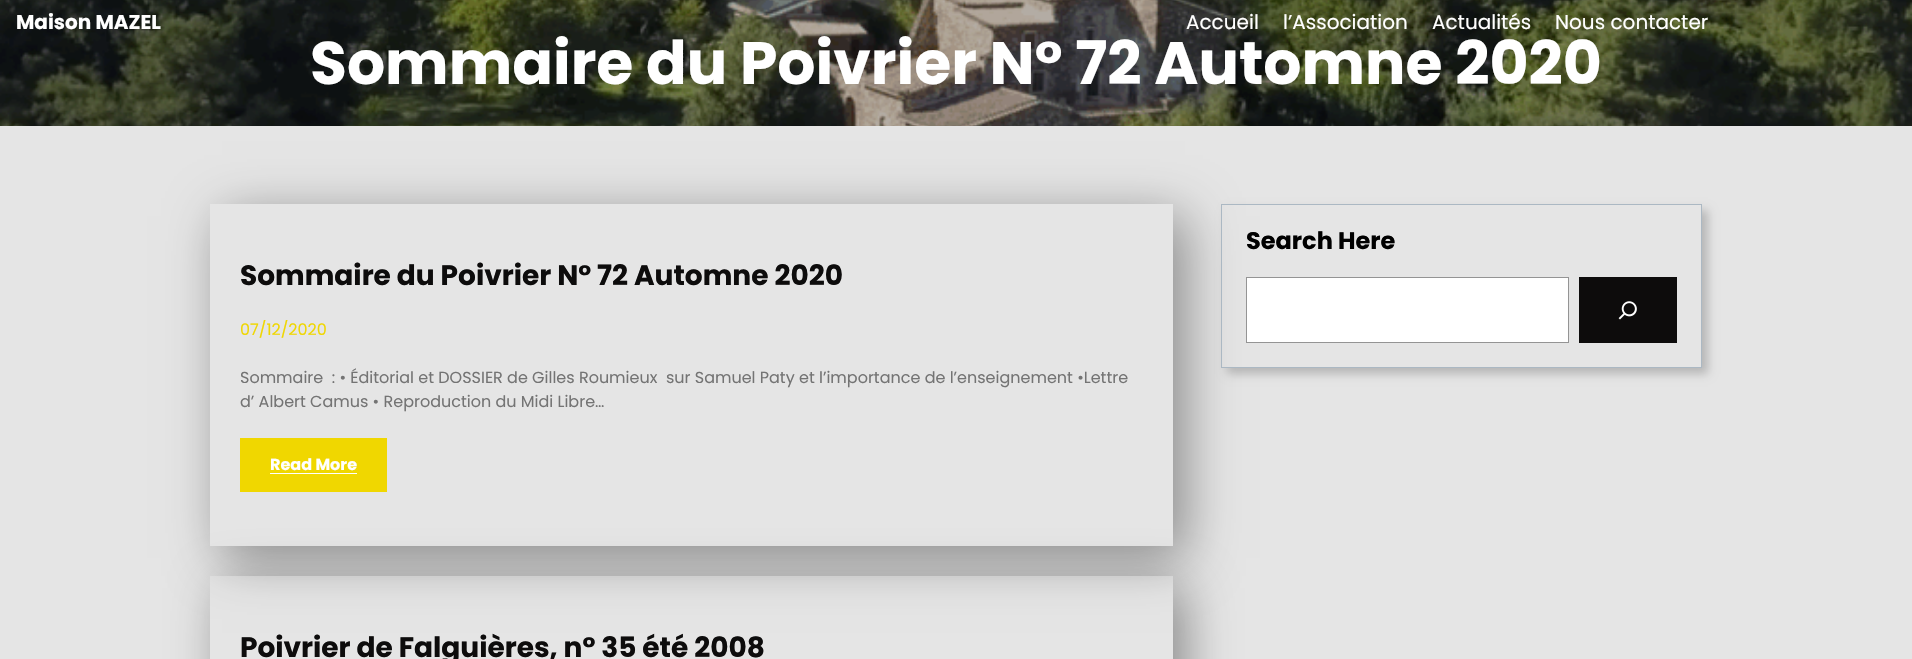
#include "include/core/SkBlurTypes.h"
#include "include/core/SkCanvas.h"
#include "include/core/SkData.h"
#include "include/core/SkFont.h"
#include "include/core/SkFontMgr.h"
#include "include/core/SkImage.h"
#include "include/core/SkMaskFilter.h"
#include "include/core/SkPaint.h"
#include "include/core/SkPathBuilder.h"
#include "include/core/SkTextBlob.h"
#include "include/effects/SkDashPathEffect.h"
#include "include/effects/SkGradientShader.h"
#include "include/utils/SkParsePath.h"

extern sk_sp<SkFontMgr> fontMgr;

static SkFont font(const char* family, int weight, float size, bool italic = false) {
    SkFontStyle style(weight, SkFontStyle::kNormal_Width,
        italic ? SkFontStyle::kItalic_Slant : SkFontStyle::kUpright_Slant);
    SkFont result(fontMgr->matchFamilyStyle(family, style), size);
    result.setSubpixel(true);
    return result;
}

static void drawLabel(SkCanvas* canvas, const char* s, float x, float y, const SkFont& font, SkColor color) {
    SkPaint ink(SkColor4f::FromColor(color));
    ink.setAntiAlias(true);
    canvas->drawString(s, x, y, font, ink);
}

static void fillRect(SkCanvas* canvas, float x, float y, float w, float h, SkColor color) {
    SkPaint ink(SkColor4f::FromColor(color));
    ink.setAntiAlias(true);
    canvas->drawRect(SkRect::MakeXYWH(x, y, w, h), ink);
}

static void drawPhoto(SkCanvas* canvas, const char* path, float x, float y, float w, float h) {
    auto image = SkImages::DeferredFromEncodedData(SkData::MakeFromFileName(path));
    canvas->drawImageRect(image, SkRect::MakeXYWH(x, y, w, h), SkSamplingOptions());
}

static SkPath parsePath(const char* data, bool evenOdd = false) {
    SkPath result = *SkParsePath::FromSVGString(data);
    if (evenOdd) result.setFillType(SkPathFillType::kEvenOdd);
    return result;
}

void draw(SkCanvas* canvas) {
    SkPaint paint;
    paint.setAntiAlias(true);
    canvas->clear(0xFFE5E5E5);
    drawPhoto(canvas, "assets/img1.png", 0, 0, 1912, 126);
    SkFont font1 = font("Poppins", 700, 20);
    drawLabel(canvas, "Maison MAZEL", 16, 29, font1, 0xFFFFFFFF);
    SkFont font2 = font("Poppins", 400, 20);
    drawLabel(canvas, "Accueil", 1186, 29, font2, 0xFFFFFFFF);
    drawLabel(canvas, "l’Association", 1283, 29, font2, 0xFFFFFFFF);
    drawLabel(canvas, "Actualités", 1432, 29, font2, 0xFFFFFFFF);
    drawLabel(canvas, "Nous contacter", 1555, 29, font2, 0xFFFFFFFF);
    SkFont font3 = font("Poppins", 700, 60);
    drawLabel(canvas, "Sommaire du Poivrier N° 72 Automne 2020", 310, 84, font3, 0xFFFFFFFF);
    canvas->save();
    canvas->clipPath(parsePath("M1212 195H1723V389H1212ZM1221 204H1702V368H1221Z", true), true);
    paint.setColor(0x33000000);
    paint.setMaskFilter(SkMaskFilter::MakeBlur(kNormal_SkBlurStyle, 4.5f));
    canvas->drawRect(SkRect::MakeXYWH(1227, 210, 481, 164), paint);
    paint.setMaskFilter(nullptr);
    canvas->restore();
    canvas->save();
    canvas->clipPath(parsePath("M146 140H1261V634H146ZM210 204H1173V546H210Z", true), true);
    paint.setColor(0x66000000);
    paint.setMaskFilter(SkMaskFilter::MakeBlur(kNormal_SkBlurStyle, 25));
    canvas->drawRect(SkRect::MakeXYWH(222, 216, 963, 342), paint);
    paint.setMaskFilter(nullptr);
    canvas->restore();
    paint.setStroke(true);
    paint.setStrokeWidth(1);
    paint.setColor(0xFFABB8C3);
    canvas->drawRect(SkRect::MakeXYWH(1221.5f, 204.5f, 480, 163), paint);
    SkFont font4 = font("Poppins", 700, 24);
    drawLabel(canvas, "Search Here", 1246, 249, font4, 0xFF000000);
    paint.setStroke(false);
    paint.setColor(0xFFFFFFFF);
    canvas->drawRect(SkRect::MakeXYWH(1246.5f, 277.5f, 322, 65), paint);
    paint.setStroke(true);
    paint.setColor(0xFF949494);
    canvas->drawRect(SkRect::MakeXYWH(1246.5f, 277.5f, 322, 65), paint);
    fillRect(canvas, 1579, 277, 98, 66, 0xFF0D0C0C);
    drawPhoto(canvas, "assets/img2.png", 1618, 301, 19, 19);
    SkFont font5 = font("Poppins", 700, 28);
    drawLabel(canvas, "Sommaire du Poivrier N° 72 Automne 2020", 240, 285, font5, 0xFF0D0C0C);
    SkFont font6 = font("Poppins", 400, 16);
    drawLabel(canvas, "07/12/2020", 240, 335, font6, 0xFFF0D700);
    drawLabel(canvas, "Sommaire  : • Éditorial et DOSSIER de Gilles Roumieux  sur Samuel Paty et l’importance de l’enseignement •Lettre", 240, 383, font6, 0xFF747474);
    drawLabel(canvas, "d’ Albert Camus • Reproduction du Midi Libre…", 240, 407, font6, 0xFF747474);
    fillRect(canvas, 240, 438, 147, 54, 0xFFF0D700);
    SkFont font7 = font("Poppins", 700, 16);
    drawLabel(canvas, "Read More", 270, 470, font7, 0xFFFFFFFF);
    fillRect(canvas, 270, 473, 87, 1, 0xFFFFFFFF);
    canvas->save();
    canvas->clipPath(parsePath("M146 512H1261V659H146ZM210 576H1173V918H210Z", true), true);
    paint.setStroke(false);
    paint.setColor(0x66000000);
    paint.setMaskFilter(SkMaskFilter::MakeBlur(kNormal_SkBlurStyle, 25));
    canvas->drawRect(SkRect::MakeXYWH(222, 588, 963, 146), paint);
    paint.setMaskFilter(nullptr);
    canvas->restore();
    drawLabel(canvas, "Poivrier de Falguières, n° 35 été 2008", 240, 657, font5, 0xFF0D0C0C);
}
